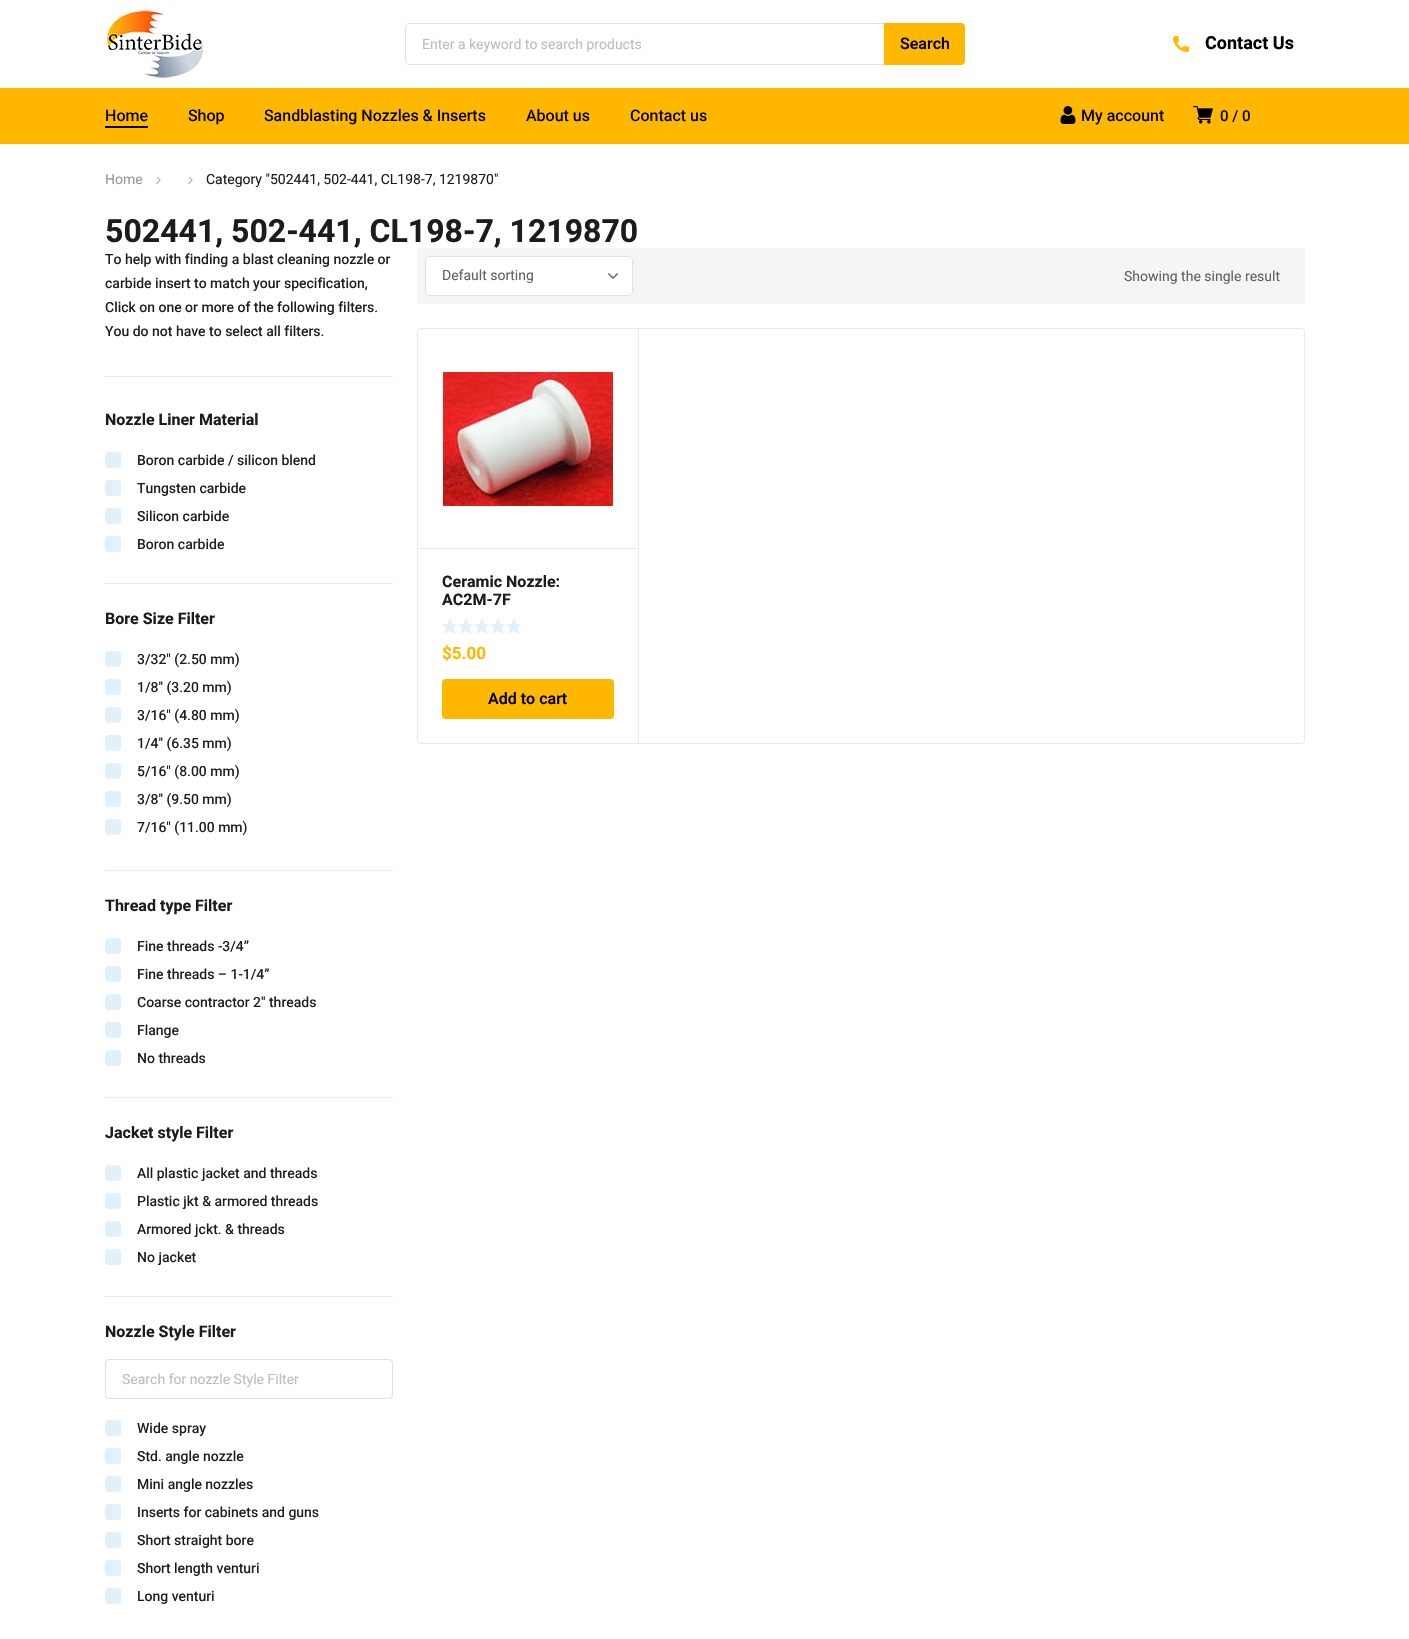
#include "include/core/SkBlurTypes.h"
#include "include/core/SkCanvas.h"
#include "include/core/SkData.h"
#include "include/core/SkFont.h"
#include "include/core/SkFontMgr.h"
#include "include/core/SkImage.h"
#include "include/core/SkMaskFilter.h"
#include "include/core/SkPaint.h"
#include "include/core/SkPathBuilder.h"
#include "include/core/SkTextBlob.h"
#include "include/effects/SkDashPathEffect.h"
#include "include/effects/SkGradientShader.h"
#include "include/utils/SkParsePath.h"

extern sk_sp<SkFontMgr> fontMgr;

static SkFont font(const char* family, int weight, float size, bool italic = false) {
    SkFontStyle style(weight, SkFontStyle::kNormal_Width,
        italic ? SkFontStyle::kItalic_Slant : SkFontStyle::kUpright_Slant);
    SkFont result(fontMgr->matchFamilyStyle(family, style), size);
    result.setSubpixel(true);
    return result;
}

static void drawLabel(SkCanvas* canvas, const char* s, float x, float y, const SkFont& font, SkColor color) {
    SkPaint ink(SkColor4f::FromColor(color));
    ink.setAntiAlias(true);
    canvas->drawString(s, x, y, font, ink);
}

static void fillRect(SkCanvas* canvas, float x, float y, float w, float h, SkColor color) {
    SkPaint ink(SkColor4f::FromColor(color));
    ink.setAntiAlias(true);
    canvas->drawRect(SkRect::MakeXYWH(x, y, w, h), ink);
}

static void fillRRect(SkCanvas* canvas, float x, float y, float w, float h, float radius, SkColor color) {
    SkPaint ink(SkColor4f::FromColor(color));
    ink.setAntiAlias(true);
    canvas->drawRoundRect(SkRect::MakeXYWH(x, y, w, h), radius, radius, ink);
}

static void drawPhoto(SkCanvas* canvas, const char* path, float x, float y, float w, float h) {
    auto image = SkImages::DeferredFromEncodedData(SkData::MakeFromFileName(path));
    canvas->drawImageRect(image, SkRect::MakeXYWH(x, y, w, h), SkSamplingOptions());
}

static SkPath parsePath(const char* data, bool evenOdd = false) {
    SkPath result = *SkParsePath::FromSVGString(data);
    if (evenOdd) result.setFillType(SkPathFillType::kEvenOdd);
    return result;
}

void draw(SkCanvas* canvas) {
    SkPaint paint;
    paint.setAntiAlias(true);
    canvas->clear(0xFFFFFFFF);
    drawPhoto(canvas, "assets/img1.png", 107, 10, 96, 68);
    paint.setStroke(true);
    paint.setStrokeWidth(1);
    paint.setColor(0xFFE0E0E0);
    canvas->drawRoundRect(SkRect::MakeXYWH(405.5f, 23.5f, 559, 41), 3.5f, 3.5f, paint);
    paint.setStroke(false);
    paint.setColor(0xFFFFB700);
    canvas->drawPath(parsePath("M884 23H961C963 23 965 25 965 27V61C965 63 963 65 961 65H884Z"), paint);
    SkFont font1 = font("Heebo", 400, 14);
    drawLabel(canvas, "Enter a keyword to search products", 422, 49, font1, 0xFFBDBDBD);
    SkFont font2 = font("Heebo", 600, 16);
    drawLabel(canvas, "Search", 900, 49, font2, 0xFF000000);
    drawPhoto(canvas, "assets/img2.png", 1173, 36, 16, 16);
    SkFont font3 = font("Heebo", 700, 18);
    drawLabel(canvas, "Contact Us", 1205, 49, font3, 0xFF000000);
    fillRect(canvas, 0, 88, 1409, 56, 0xFFFFB700);
    SkFont font4 = font("Heebo", 500, 16);
    drawLabel(canvas, "Home", 105, 121, font4, 0xFF000000);
    fillRect(canvas, 105, 126, 43, 2, 0xFF000000);
    drawLabel(canvas, "Shop", 188, 121, font4, 0xFF000000);
    drawLabel(canvas, "Sandblasting Nozzles & Inserts", 264, 121, font4, 0xFF000000);
    drawLabel(canvas, "About us", 526, 121, font4, 0xFF000000);
    drawLabel(canvas, "Contact us", 630, 121, font4, 0xFF000000);
    drawPhoto(canvas, "assets/img3.png", 1060, 106, 16, 18);
    drawLabel(canvas, "My account", 1081, 121, font4, 0xFF000000);
    drawPhoto(canvas, "assets/img4.png", 1193, 106, 20, 18);
    SkFont font5 = font("Heebo", 500, 15);
    drawLabel(canvas, "0 / 0", 1220, 121, font5, 0xFF000000);
    drawLabel(canvas, "Home", 105, 184, font1, 0xFF9A9A9A);
    drawPhoto(canvas, "assets/img5.png", 156, 177, 5, 8);
    drawPhoto(canvas, "assets/img5.png", 188, 177, 5, 8);
    drawLabel(canvas, "Category \"502441, 502-441, CL198-7, 1219870\"", 206, 184, font1, 0xFF1C1C1E);
    SkFont font6 = font("Heebo", 700, 32);
    drawLabel(canvas, "502441, 502-441, CL198-7, 1219870", 105, 242, font6, 0xFF1C1C1E);
    fillRect(canvas, 105, 376, 288, 1, 0xFFEAEAEA);
    SkFont font7 = font("Heebo", 500, 14);
    drawLabel(canvas, "To help with finding a blast cleaning nozzle or", 105, 264, font7, 0xFF1C1C1E);
    drawLabel(canvas, "carbide insert to match your specification,", 105, 288, font7, 0xFF1C1C1E);
    drawLabel(canvas, "Click on one or more of the following filters.", 105, 312, font7, 0xFF1C1C1E);
    drawLabel(canvas, "You do not have to select all filters.", 105, 336, font7, 0xFF1C1C1E);
    fillRect(canvas, 105, 583, 288, 1, 0xFFEAEAEA);
    SkFont font8 = font("Heebo", 700, 16);
    drawLabel(canvas, "Nozzle Liner Material", 105, 425, font8, 0xFF1C1C1E);
    fillRRect(canvas, 105, 452, 16, 16, 4, 0xFFE0F1FB);
    drawLabel(canvas, "Boron carbide / silicon blend", 137, 465, font7, 0xFF1C1C1E);
    fillRRect(canvas, 105, 480, 16, 16, 4, 0xFFE0F1FB);
    drawLabel(canvas, "Tungsten carbide", 137, 493, font7, 0xFF1C1C1E);
    fillRRect(canvas, 105, 508, 16, 16, 4, 0xFFE0F1FB);
    drawLabel(canvas, "Silicon carbide", 137, 521, font7, 0xFF1C1C1E);
    fillRRect(canvas, 105, 536, 16, 16, 4, 0xFFE0F1FB);
    drawLabel(canvas, "Boron carbide", 137, 549, font7, 0xFF1C1C1E);
    fillRect(canvas, 105, 870, 288, 1, 0xFFEAEAEA);
    drawLabel(canvas, "Bore Size Filter", 105, 624, font8, 0xFF1C1C1E);
    fillRRect(canvas, 105, 651, 16, 16, 4, 0xFFE0F1FB);
    drawLabel(canvas, "3/32\" (2.50 mm)", 137, 664, font7, 0xFF1C1C1E);
    fillRRect(canvas, 105, 679, 16, 16, 4, 0xFFE0F1FB);
    drawLabel(canvas, "1/8\" (3.20 mm)", 137, 692, font7, 0xFF1C1C1E);
    fillRRect(canvas, 105, 707, 16, 16, 4, 0xFFE0F1FB);
    drawLabel(canvas, "3/16\" (4.80 mm)", 137, 720, font7, 0xFF1C1C1E);
    fillRRect(canvas, 105, 735, 16, 16, 4, 0xFFE0F1FB);
    drawLabel(canvas, "1/4\" (6.35 mm)", 137, 748, font7, 0xFF1C1C1E);
    fillRRect(canvas, 105, 763, 16, 16, 4, 0xFFE0F1FB);
    drawLabel(canvas, "5/16\" (8.00 mm)", 137, 776, font7, 0xFF1C1C1E);
    fillRRect(canvas, 105, 791, 16, 16, 4, 0xFFE0F1FB);
    drawLabel(canvas, "3/8\" (9.50 mm)", 137, 804, font7, 0xFF1C1C1E);
    fillRRect(canvas, 105, 819, 16, 16, 4, 0xFFE0F1FB);
    drawLabel(canvas, "7/16\" (11.00 mm)", 137, 832, font7, 0xFF1C1C1E);
    fillRect(canvas, 105, 1097, 288, 1, 0xFFEAEAEA);
    drawLabel(canvas, "Thread type Filter", 105, 911, font8, 0xFF1C1C1E);
    fillRRect(canvas, 105, 938, 16, 16, 4, 0xFFE0F1FB);
    drawLabel(canvas, "Fine threads -3/4”", 137, 951, font7, 0xFF1C1C1E);
    fillRRect(canvas, 105, 966, 16, 16, 4, 0xFFE0F1FB);
    drawLabel(canvas, "Fine threads – 1-1/4”", 137, 979, font7, 0xFF1C1C1E);
    fillRRect(canvas, 105, 994, 16, 16, 4, 0xFFE0F1FB);
    drawLabel(canvas, "Coarse contractor 2\" threads", 137, 1007, font7, 0xFF1C1C1E);
    fillRRect(canvas, 105, 1022, 16, 16, 4, 0xFFE0F1FB);
    drawLabel(canvas, "Flange", 137, 1035, font7, 0xFF1C1C1E);
    fillRRect(canvas, 105, 1050, 16, 16, 4, 0xFFE0F1FB);
    drawLabel(canvas, "No threads", 137, 1063, font7, 0xFF1C1C1E);
    fillRect(canvas, 105, 1296, 288, 1, 0xFFEAEAEA);
    drawLabel(canvas, "Jacket style Filter", 105, 1138, font8, 0xFF1C1C1E);
    fillRRect(canvas, 105, 1165, 16, 16, 4, 0xFFE0F1FB);
    drawLabel(canvas, "All plastic jacket and threads", 137, 1178, font7, 0xFF1C1C1E);
    fillRRect(canvas, 105, 1193, 16, 16, 4, 0xFFE0F1FB);
    drawLabel(canvas, "Plastic jkt & armored threads", 137, 1206, font7, 0xFF1C1C1E);
    fillRRect(canvas, 105, 1221, 16, 16, 4, 0xFFE0F1FB);
    drawLabel(canvas, "Armored jckt. & threads", 137, 1234, font7, 0xFF1C1C1E);
    fillRRect(canvas, 105, 1249, 16, 16, 4, 0xFFE0F1FB);
    drawLabel(canvas, "No jacket", 137, 1262, font7, 0xFF1C1C1E);
    drawLabel(canvas, "Nozzle Style Filter", 105, 1337, font8, 0xFF1C1C1E);
    paint.setStroke(true);
    paint.setColor(0xFFE0E0E0);
    canvas->drawRoundRect(SkRect::MakeXYWH(105.5f, 1359.5f, 287, 39), 3.5f, 3.5f, paint);
    drawLabel(canvas, "Search for nozzle Style Filter", 122, 1384, font1, 0xFFBDBDBD);
    fillRRect(canvas, 105, 1420, 16, 16, 4, 0xFFE0F1FB);
    drawLabel(canvas, "Wide spray", 137, 1433, font7, 0xFF1C1C1E);
    fillRRect(canvas, 105, 1448, 16, 16, 4, 0xFFE0F1FB);
    drawLabel(canvas, "Std. angle nozzle", 137, 1461, font7, 0xFF1C1C1E);
    fillRRect(canvas, 105, 1476, 16, 16, 4, 0xFFE0F1FB);
    drawLabel(canvas, "Mini angle nozzles", 137, 1489, font7, 0xFF1C1C1E);
    fillRRect(canvas, 105, 1504, 16, 16, 4, 0xFFE0F1FB);
    drawLabel(canvas, "Inserts for cabinets and guns", 137, 1517, font7, 0xFF1C1C1E);
    fillRRect(canvas, 105, 1532, 16, 16, 4, 0xFFE0F1FB);
    drawLabel(canvas, "Short straight bore", 137, 1545, font7, 0xFF1C1C1E);
    fillRRect(canvas, 105, 1560, 16, 16, 4, 0xFFE0F1FB);
    drawLabel(canvas, "Short length venturi", 137, 1573, font7, 0xFF1C1C1E);
    fillRRect(canvas, 105, 1588, 16, 16, 4, 0xFFE0F1FB);
    drawLabel(canvas, "Long venturi", 137, 1601, font7, 0xFF1C1C1E);
    fillRRect(canvas, 417, 248, 888, 56, 4, 0xFFF5F5F5);
    fillRRect(canvas, 425, 256, 208, 40, 4, 0xFFFFFFFF);
    drawPhoto(canvas, "assets/img6.png", 608, 273, 10, 6);
    canvas->drawRoundRect(SkRect::MakeXYWH(425.5f, 256.5f, 207, 39), 3.5f, 3.5f, paint);
    drawLabel(canvas, "Default sorting", 442, 280, font1, 0xFF616161);
    drawLabel(canvas, "Showing the single result", 1124, 281, font1, 0xFF616161);
    paint.setColor(0xFFEAEAEA);
    canvas->drawRoundRect(SkRect::MakeXYWH(417.5f, 328.5f, 887, 415), 3.5f, 3.5f, paint);
    fillRect(canvas, 638, 329, 1, 414, 0xFFEAEAEA);
    drawPhoto(canvas, "assets/img7.png", 443, 372, 170, 134);
    fillRect(canvas, 418, 548, 220, 1, 0xFFEAEAEA);
    drawLabel(canvas, "Ceramic Nozzle:", 442, 587, font8, 0xFF1C1C1E);
    drawLabel(canvas, "AC2M-7F", 442, 605, font8, 0xFF1C1C1E);
    drawPhoto(canvas, "assets/img8.png", 442, 618, 80, 16);
    SkFont font9 = font("Heebo", 700, 17);
    drawLabel(canvas, "$5.00", 442, 659, font9, 0xFFFFB700);
    fillRRect(canvas, 442, 679, 172, 40, 4, 0xFFFFB700);
    drawLabel(canvas, "Add to cart", 488, 704, font2, 0xFF000000);
}
